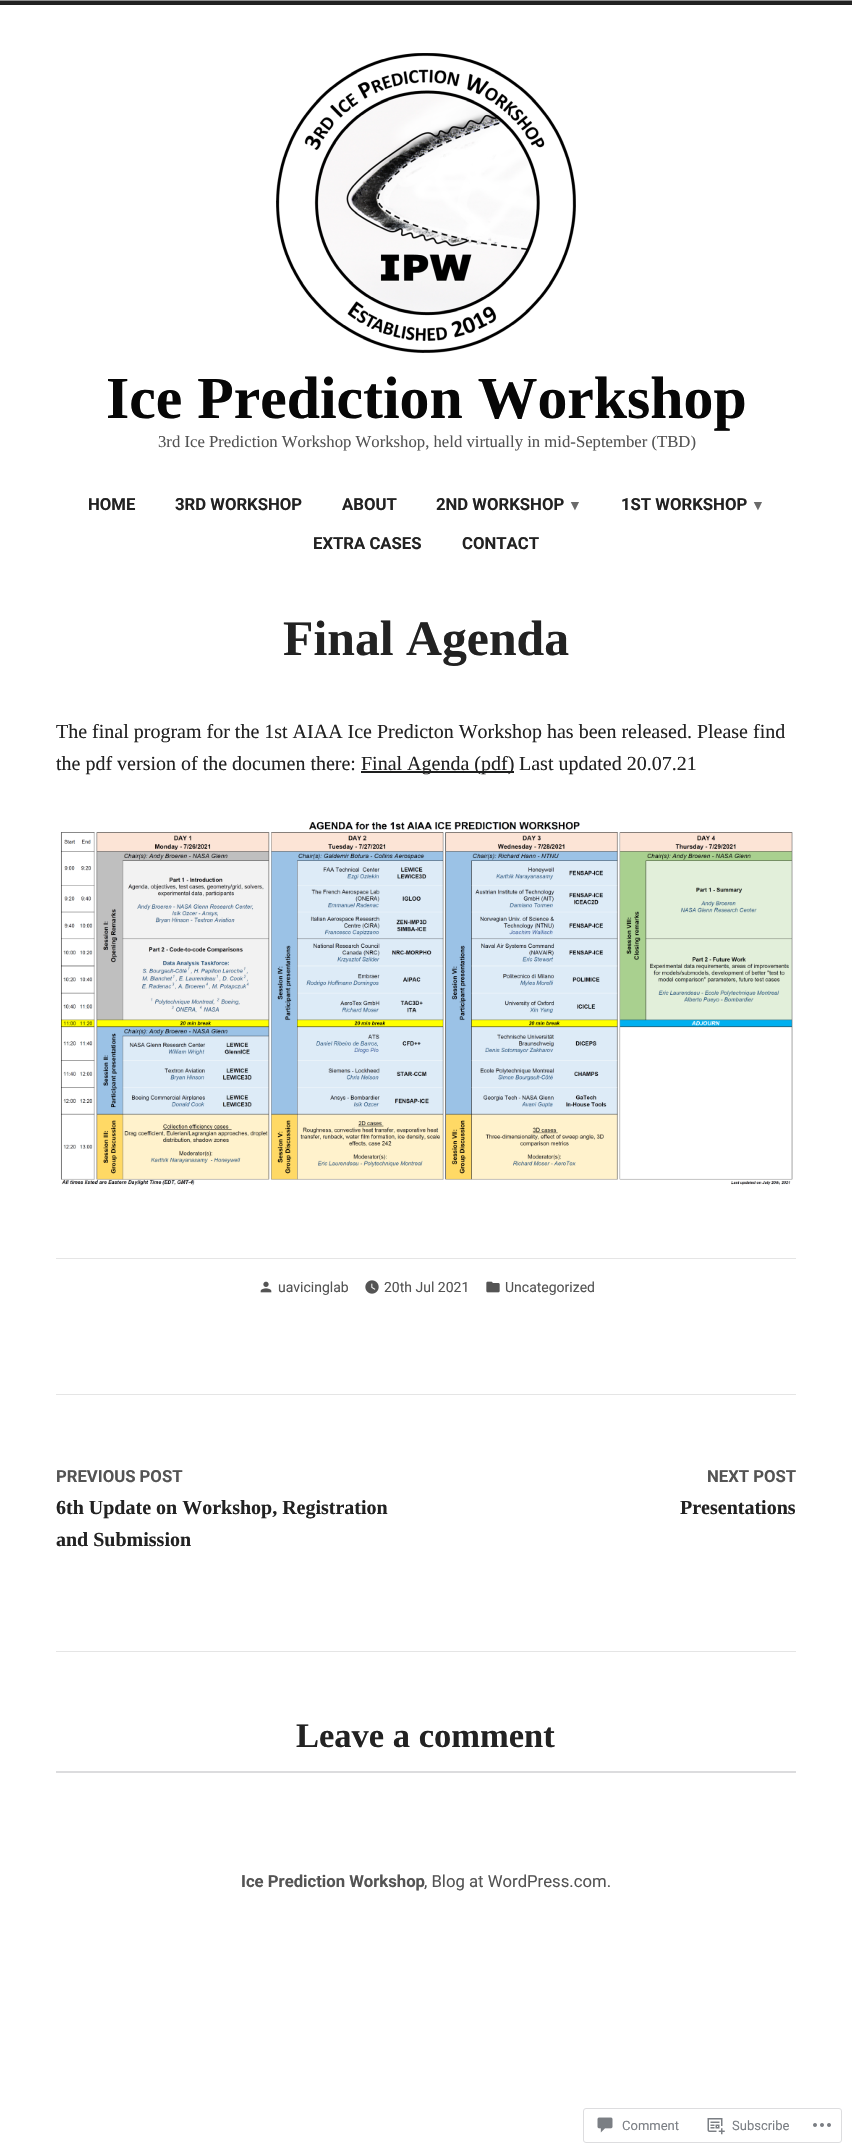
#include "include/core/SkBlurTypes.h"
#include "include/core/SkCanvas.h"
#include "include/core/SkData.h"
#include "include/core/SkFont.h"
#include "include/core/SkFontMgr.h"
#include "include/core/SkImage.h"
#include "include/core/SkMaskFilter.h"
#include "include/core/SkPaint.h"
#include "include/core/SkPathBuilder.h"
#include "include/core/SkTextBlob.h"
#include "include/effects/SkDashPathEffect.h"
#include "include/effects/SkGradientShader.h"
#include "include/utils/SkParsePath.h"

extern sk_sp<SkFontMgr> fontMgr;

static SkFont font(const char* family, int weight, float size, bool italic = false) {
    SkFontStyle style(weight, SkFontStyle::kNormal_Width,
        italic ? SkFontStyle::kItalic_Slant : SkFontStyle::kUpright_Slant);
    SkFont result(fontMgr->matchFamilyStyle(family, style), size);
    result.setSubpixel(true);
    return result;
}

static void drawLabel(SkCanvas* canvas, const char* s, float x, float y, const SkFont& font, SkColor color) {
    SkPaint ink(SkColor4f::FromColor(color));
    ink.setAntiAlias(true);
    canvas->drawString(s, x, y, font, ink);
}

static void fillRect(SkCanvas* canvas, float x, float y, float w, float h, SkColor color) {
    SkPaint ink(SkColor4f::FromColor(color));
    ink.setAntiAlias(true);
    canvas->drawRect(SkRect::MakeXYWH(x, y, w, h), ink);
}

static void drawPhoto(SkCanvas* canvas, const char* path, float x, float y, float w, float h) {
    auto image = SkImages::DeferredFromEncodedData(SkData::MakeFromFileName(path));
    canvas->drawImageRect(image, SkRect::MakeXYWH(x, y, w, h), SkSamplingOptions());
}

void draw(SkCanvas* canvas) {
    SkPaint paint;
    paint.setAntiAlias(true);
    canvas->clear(0xFFFFFFFF);
    fillRect(canvas, 0, 1, 852, 4, 0xFF222222);
    fillRect(canvas, 0, 0, 852, 1, 0xFF919191);
    drawPhoto(canvas, "assets/img1.png", 276, 53, 300, 300);
    SkFont font1 = font("Liberation Serif", 700, 59.75f);
    drawLabel(canvas, "Ice Prediction Workshop", 106, 418, font1, 0xFF070707);
    SkFont font2 = font("Liberation Serif", 400, 16.7f);
    drawLabel(canvas, "3rd Ice Prediction Workshop Workshop, held virtually in mid-September (TBD)", 158, 447, font2, 0xFF545454);
    SkFont font3 = font("Roboto", 700, 16.7f);
    drawLabel(canvas, "HOME", 88, 510, font3, 0xFF222222);
    drawLabel(canvas, "3RD WORKSHOP", 175, 510, font3, 0xFF222222);
    drawLabel(canvas, "ABOUT", 342, 510, font3, 0xFF222222);
    drawLabel(canvas, "2ND WORKSHOP", 436, 510, font3, 0xFF222222);
    SkFont font4 = font("Liberation Sans", 700, 14);
    drawLabel(canvas, "▼", 568, 510, font4, 0xFF6B6B6B);
    drawLabel(canvas, "1ST WORKSHOP", 621, 510, font3, 0xFF222222);
    drawLabel(canvas, "▼", 751, 510, font4, 0xFF6B6B6B);
    drawLabel(canvas, "EXTRA CASES", 313, 549, font3, 0xFF222222);
    drawLabel(canvas, "CONTACT", 462, 549, font3, 0xFF222222);
    SkFont font5 = font("Liberation Serif", 700, 49.75f);
    drawLabel(canvas, "Final Agenda", 283, 655, font5, 0xFF222222);
    SkFont font6 = font("Liberation Serif", 400, 20);
    drawLabel(canvas, "The final program for the 1st AIAA Ice Predicton Workshop has been released. Please find", 56, 738, font6, 0xFF222222);
    drawLabel(canvas, "the pdf version of the documen there:", 56, 770, font6, 0xFF222222);
    fillRect(canvas, 361, 771, 153, 2, 0xFF1D1E1E);
    drawLabel(canvas, "Final Agenda (pdf)", 361, 770, font6, 0xFF222222);
    drawLabel(canvas, "Last updated 20.07.21", 519, 770, font6, 0xFF222222);
    drawPhoto(canvas, "assets/img2.png", 60, 822, 733, 364);
    fillRect(canvas, 56, 1258, 740, 1, 0xFFE5E5E5);
    drawPhoto(canvas, "assets/img3.png", 260, 1281, 12, 12);
    SkFont font7 = font("Roboto", 400, 14);
    drawLabel(canvas, "uavicinglab", 278, 1292, font7, 0xFF545454);
    drawPhoto(canvas, "assets/img4.png", 365, 1280, 14, 14);
    drawLabel(canvas, "20th Jul 2021", 384, 1292, font7, 0xFF545454);
    drawPhoto(canvas, "assets/img5.png", 486, 1281, 14, 12);
    drawLabel(canvas, "Uncategorized", 505, 1292, font7, 0xFF545454);
    fillRect(canvas, 56, 1394, 740, 1, 0xFFE5E5E5);
    drawLabel(canvas, "PREVIOUS POST", 56, 1482, font3, 0xFF545454);
    SkFont font8 = font("Liberation Serif", 700, 20);
    drawLabel(canvas, "6th Update on Workshop, Registration", 56, 1514, font8, 0xFF222222);
    drawLabel(canvas, "and Submission", 56, 1546, font8, 0xFF222222);
    drawLabel(canvas, "NEXT POST", 707, 1482, font3, 0xFF545454);
    drawLabel(canvas, "Presentations", 680, 1514, font8, 0xFF222222);
    fillRect(canvas, 56, 1651, 740, 1, 0xFFE5E5E5);
    SkFont font9 = font("Liberation Serif", 700, 34.5f);
    drawLabel(canvas, "Leave a comment", 296, 1747, font9, 0xFF222222);
    fillRect(canvas, 56, 1771, 740, 2, 0xFFDCDCDE);
    drawLabel(canvas, "Ice Prediction Workshop", 241, 1887, font3, 0xFF545454);
    SkFont font10 = font("Roboto", 400, 16.7f);
    drawLabel(canvas, ", Blog at WordPress.com.", 424, 1887, font10, 0xFF545454);
    paint.setStroke(true);
    paint.setStrokeWidth(1);
    paint.setColor(0xFFDDDDDF);
    canvas->drawRoundRect(SkRect::MakeXYWH(583.5f, 2108.5f, 258, 34), 2.5f, 2.5f, paint);
    drawPhoto(canvas, "assets/img6.png", 597, 2117, 16, 16);
    SkFont font11 = font("Roboto", 400, 13);
    drawLabel(canvas, "Comment", 622, 2130, font11, 0xFF7B7F85);
    drawPhoto(canvas, "assets/img7.png", 707, 2118, 18, 17);
    drawLabel(canvas, "Subscribe", 732, 2130, font11, 0xFF7B7F85);
    drawPhoto(canvas, "assets/img8.png", 813, 2123, 18, 4);
}
